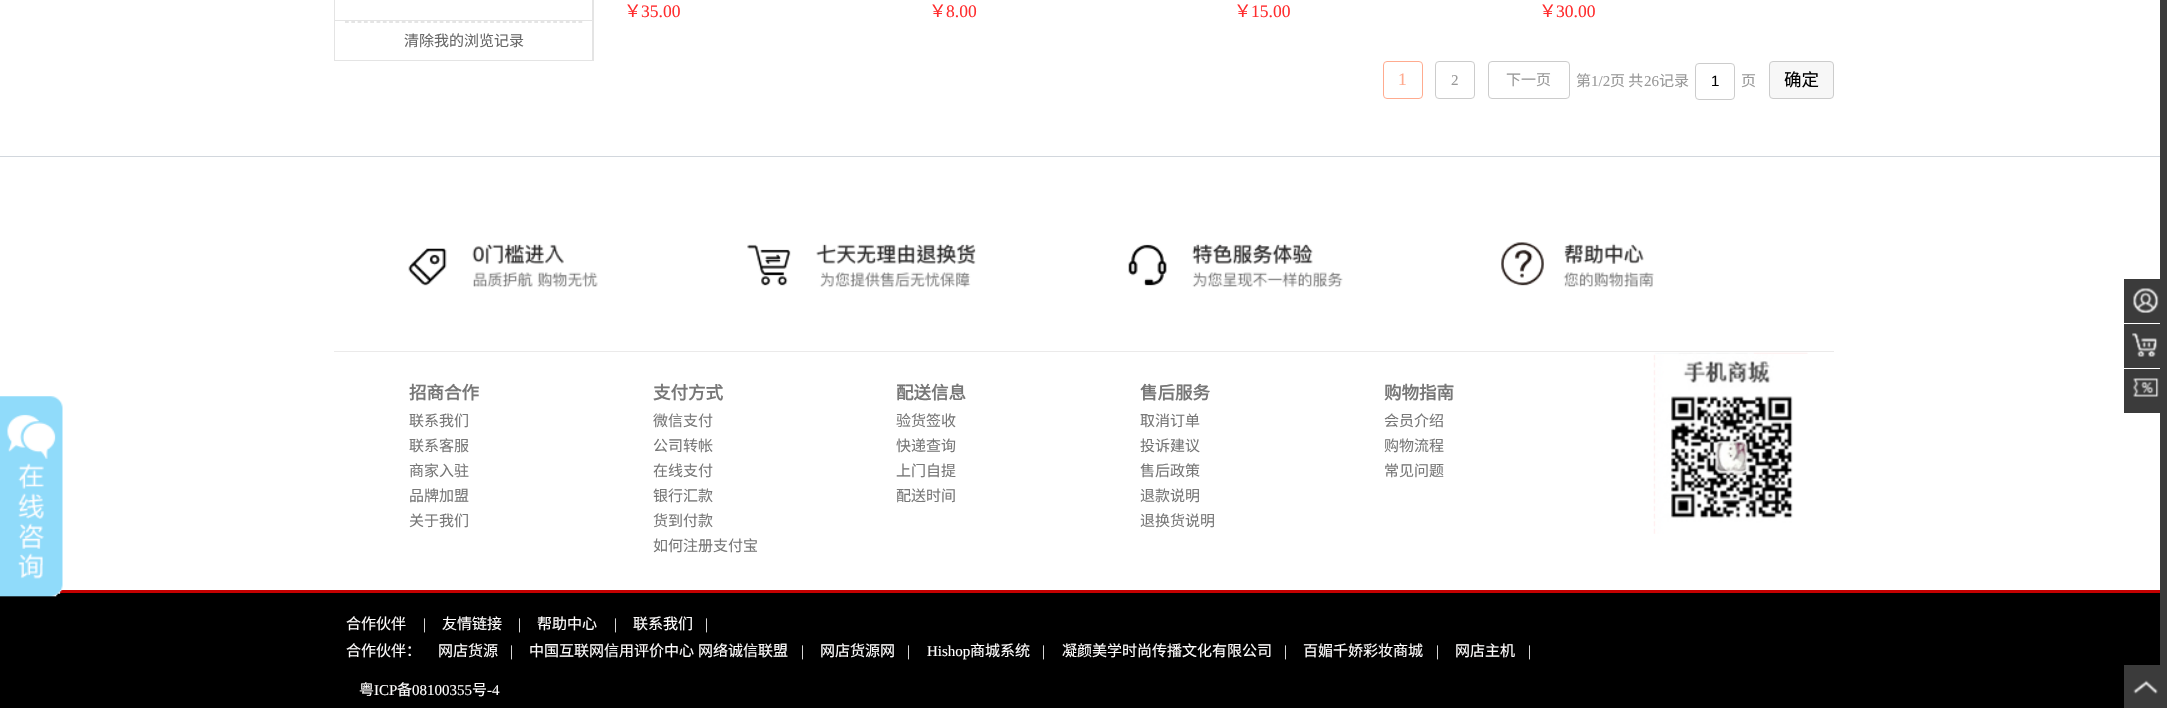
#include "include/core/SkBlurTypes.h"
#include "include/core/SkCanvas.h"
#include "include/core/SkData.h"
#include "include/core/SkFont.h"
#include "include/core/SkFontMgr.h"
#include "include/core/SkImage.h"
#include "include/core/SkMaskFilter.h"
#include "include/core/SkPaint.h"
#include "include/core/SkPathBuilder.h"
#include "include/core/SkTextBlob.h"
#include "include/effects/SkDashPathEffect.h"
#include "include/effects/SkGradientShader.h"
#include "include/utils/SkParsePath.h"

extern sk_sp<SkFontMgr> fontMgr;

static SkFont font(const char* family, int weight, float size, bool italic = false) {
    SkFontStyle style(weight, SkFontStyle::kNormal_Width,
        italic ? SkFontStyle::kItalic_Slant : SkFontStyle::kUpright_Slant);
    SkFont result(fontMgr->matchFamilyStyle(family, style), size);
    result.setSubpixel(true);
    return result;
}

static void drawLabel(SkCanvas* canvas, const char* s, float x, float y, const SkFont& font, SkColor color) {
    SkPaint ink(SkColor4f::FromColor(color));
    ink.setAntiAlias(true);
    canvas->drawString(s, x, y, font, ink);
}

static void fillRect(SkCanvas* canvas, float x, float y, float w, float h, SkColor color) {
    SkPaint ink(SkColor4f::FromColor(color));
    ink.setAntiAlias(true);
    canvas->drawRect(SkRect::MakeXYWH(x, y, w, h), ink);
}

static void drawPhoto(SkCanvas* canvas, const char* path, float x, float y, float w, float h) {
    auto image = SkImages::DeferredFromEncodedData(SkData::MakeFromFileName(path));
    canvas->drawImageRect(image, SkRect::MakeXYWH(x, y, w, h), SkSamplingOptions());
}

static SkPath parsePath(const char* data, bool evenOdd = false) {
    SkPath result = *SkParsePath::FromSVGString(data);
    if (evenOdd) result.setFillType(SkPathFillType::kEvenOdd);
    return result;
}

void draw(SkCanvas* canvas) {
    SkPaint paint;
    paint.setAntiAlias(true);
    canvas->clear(0xFFFFFFFF);
    paint.setColor(0xFFE4E4E4);
    canvas->drawPath(parsePath("M594-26V61L592 60V-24Z"), paint);
    fillRect(canvas, 334, 60, 260, 1, 0xFFE4E4E4);
    canvas->drawPath(parsePath("M334 61V-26L335-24V60Z"), paint);
    fillRect(canvas, 335, 20, 258, 1, 0xFFE4E4E4);
    paint.setStroke(true);
    paint.setStrokeWidth(1.2f);
    paint.setColor(0xFFCCCCCC);
    paint.setPathEffect(SkDashPathEffect::Make({{3.75f, 2.56f}}, 0));
    canvas->drawPath(parsePath("M345 22H582.5"), paint);
    paint.setPathEffect(nullptr);
    SkFont font1 = font("Noto Sans CJK SC", 400, 15);
    drawLabel(canvas, "清除我的浏览记录", 404, 46, font1, 0xFF686868);
    SkFont font2 = font("Noto Sans CJK SC", 400, 17.5f);
    drawLabel(canvas, "￥", 624, 17, font2, 0xFFFF2D2E);
    SkFont font3 = font("Liberation Serif", 400, 17.5f);
    drawLabel(canvas, "35.00", 641, 17, font3, 0xFFFF2D2E);
    drawLabel(canvas, "￥", 929, 17, font2, 0xFFFF2D2E);
    drawLabel(canvas, "8.00", 946, 17, font3, 0xFFFF2D2E);
    drawLabel(canvas, "￥", 1234, 17, font2, 0xFFFF2D2E);
    drawLabel(canvas, "15.00", 1251, 17, font3, 0xFFFF2D2E);
    drawLabel(canvas, "￥", 1539, 17, font2, 0xFFFF2D2E);
    drawLabel(canvas, "30.00", 1556, 17, font3, 0xFFFF2D2E);
    paint.setStrokeWidth(1);
    paint.setColor(0xFFFFAB8F);
    canvas->drawRoundRect(SkRect::MakeXYWH(1383.5f, 61.5f, 39, 37), 3.5f, 3.5f, paint);
    drawLabel(canvas, "1", 1398, 85, font3, 0xFFFFAB8F);
    paint.setColor(0xFFCCCCCC);
    canvas->drawRoundRect(SkRect::MakeXYWH(1435.5f, 61.5f, 39, 37), 3.5f, 3.5f, paint);
    SkFont font4 = font("Liberation Serif", 400, 15);
    drawLabel(canvas, "2", 1451, 85, font4, 0xFF999999);
    canvas->drawRoundRect(SkRect::MakeXYWH(1488.5f, 61.5f, 81, 37), 3.5f, 3.5f, paint);
    drawLabel(canvas, "下一页", 1506, 85, font1, 0xFF999999);
    drawLabel(canvas, "第", 1576, 86, font1, 0xFF999999);
    drawLabel(canvas, "1/2", 1591, 86, font4, 0xFF999999);
    drawLabel(canvas, "页 共", 1610, 86, font1, 0xFF999999);
    drawLabel(canvas, "26", 1644, 86, font4, 0xFF999999);
    drawLabel(canvas, "记录", 1659, 86, font1, 0xFF999999);
    canvas->drawRoundRect(SkRect::MakeXYWH(1695.5f, 63.5f, 39, 36), 3.5f, 3.5f, paint);
    SkFont font5 = font("Liberation Sans", 400, 15);
    drawLabel(canvas, "1", 1711, 86, font5, 0xFF000000);
    drawLabel(canvas, "页", 1741, 86, font1, 0xFF999999);
    paint.setStroke(false);
    paint.setColor(0xFFF7F7F7);
    canvas->drawRoundRect(SkRect::MakeXYWH(1769.5f, 61.5f, 64, 37), 3.5f, 3.5f, paint);
    paint.setStroke(true);
    paint.setColor(0xFFCCCCCC);
    canvas->drawRoundRect(SkRect::MakeXYWH(1769.5f, 61.5f, 64, 37), 3.5f, 3.5f, paint);
    drawLabel(canvas, "确定", 1784, 86, font2, 0xFF000000);
    fillRect(canvas, 0, 156, 2167, 1, 0xFFD2D7DD);
    fillRect(canvas, 59, 590, 2108, 3, 0xFFC40000);
    fillRect(canvas, 2160, 0, 7, 665, 0xFF3B3B3B);
    fillRect(canvas, 2124, 279, 36, 44, 0xFF3B3B3B);
    drawPhoto(canvas, "assets/img1.png", 2133, 288, 26, 25);
    fillRect(canvas, 2124, 324, 36, 44, 0xFF3B3B3B);
    drawPhoto(canvas, "assets/img2.png", 2132, 333, 26, 24);
    fillRect(canvas, 2124, 369, 36, 44, 0xFF3B3B3B);
    drawPhoto(canvas, "assets/img3.png", 2133, 378, 26, 19);
    fillRect(canvas, 0, 593, 2160, 115, 0xFF000000);
    fillRect(canvas, 2124, 665, 43, 43, 0xFF3B3B3B);
    drawPhoto(canvas, "assets/img4.png", 2133, 680, 25, 14);
    drawPhoto(canvas, "assets/img5.png", 0, 396, 63, 201);
    drawPhoto(canvas, "assets/img6.png", 408, 242, 1246, 46);
    fillRect(canvas, 334, 351, 1500, 1, 0xFFEBEAEA);
    SkFont font6 = font("Noto Sans CJK SC", 700, 17.5f);
    drawLabel(canvas, "招商合作", 409, 399, font6, 0xFF777777);
    drawLabel(canvas, "联系我们", 409, 426, font1, 0xFF777777);
    drawLabel(canvas, "联系客服", 409, 451, font1, 0xFF777777);
    drawLabel(canvas, "商家入驻", 409, 476, font1, 0xFF777777);
    drawLabel(canvas, "品牌加盟", 409, 501, font1, 0xFF777777);
    drawLabel(canvas, "关于我们", 409, 526, font1, 0xFF777777);
    drawLabel(canvas, "支付方式", 653, 399, font6, 0xFF777777);
    drawLabel(canvas, "微信支付", 653, 426, font1, 0xFF777777);
    drawLabel(canvas, "公司转帐", 653, 451, font1, 0xFF777777);
    drawLabel(canvas, "在线支付", 653, 476, font1, 0xFF777777);
    drawLabel(canvas, "银行汇款", 653, 501, font1, 0xFF777777);
    drawLabel(canvas, "货到付款", 653, 526, font1, 0xFF777777);
    drawLabel(canvas, "如何注册支付宝", 653, 551, font1, 0xFF777777);
    drawLabel(canvas, "配送信息", 896, 399, font6, 0xFF777777);
    drawLabel(canvas, "验货签收", 896, 426, font1, 0xFF777777);
    drawLabel(canvas, "快递查询", 896, 451, font1, 0xFF777777);
    drawLabel(canvas, "上门自提", 896, 476, font1, 0xFF777777);
    drawLabel(canvas, "配送时间", 896, 501, font1, 0xFF777777);
    drawLabel(canvas, "售后服务", 1140, 399, font6, 0xFF777777);
    drawLabel(canvas, "取消订单", 1140, 426, font1, 0xFF777777);
    drawLabel(canvas, "投诉建议", 1140, 451, font1, 0xFF777777);
    drawLabel(canvas, "售后政策", 1140, 476, font1, 0xFF777777);
    drawLabel(canvas, "退款说明", 1140, 501, font1, 0xFF777777);
    drawLabel(canvas, "退换货说明", 1140, 526, font1, 0xFF777777);
    drawLabel(canvas, "购物指南", 1384, 399, font6, 0xFF777777);
    drawLabel(canvas, "会员介绍", 1384, 426, font1, 0xFF777777);
    drawLabel(canvas, "购物流程", 1384, 451, font1, 0xFF777777);
    drawLabel(canvas, "常见问题", 1384, 476, font1, 0xFF777777);
    drawPhoto(canvas, "assets/img7.png", 1653, 352, 155, 182);
    drawLabel(canvas, "合作伙伴", 346, 629, font1, 0xFFFFFEFE);
    drawLabel(canvas, "|", 423, 629, font4, 0xFFFFFEFE);
    drawLabel(canvas, "友情链接", 442, 629, font1, 0xFFFFFEFE);
    drawLabel(canvas, "|", 518, 629, font4, 0xFFFFFEFE);
    drawLabel(canvas, "帮助中心", 537, 629, font1, 0xFFFFFEFE);
    drawLabel(canvas, "|", 614, 629, font4, 0xFFFFFEFE);
    drawLabel(canvas, "联系我们", 633, 629, font1, 0xFFFFFEFE);
    drawLabel(canvas, "|", 705, 629, font4, 0xFFFFFEFE);
    drawLabel(canvas, "合作伙伴：", 346, 656, font1, 0xFFFFFEFE);
    drawLabel(canvas, "网店货源", 438, 656, font1, 0xFFFFFEFE);
    drawLabel(canvas, "|", 510, 656, font4, 0xFFFFFEFE);
    drawLabel(canvas, "中国互联网信用评价中心", 529, 656, font1, 0xFFFFFEFE);
    drawLabel(canvas, "网络诚信联盟", 698, 656, font1, 0xFFFFFEFE);
    drawLabel(canvas, "|", 801, 656, font4, 0xFFFFFEFE);
    drawLabel(canvas, "网店货源网", 820, 656, font1, 0xFFFFFEFE);
    drawLabel(canvas, "|", 907, 656, font4, 0xFFFFFEFE);
    drawLabel(canvas, "Hishop", 927, 656, font4, 0xFFFFFEFE);
    drawLabel(canvas, "商城系统", 970, 656, font1, 0xFFFFFEFE);
    drawLabel(canvas, "|", 1042, 656, font4, 0xFFFFFEFE);
    drawLabel(canvas, "凝颜美学时尚传播文化有限公司", 1062, 656, font1, 0xFFFFFEFE);
    drawLabel(canvas, "|", 1284, 656, font4, 0xFFFFFEFE);
    drawLabel(canvas, "百媚千娇彩妆商城", 1303, 656, font1, 0xFFFFFEFE);
    drawLabel(canvas, "|", 1436, 656, font4, 0xFFFFFEFE);
    drawLabel(canvas, "网店主机", 1455, 656, font1, 0xFFFFFEFE);
    drawLabel(canvas, "|", 1528, 656, font4, 0xFFFFFEFE);
    drawLabel(canvas, "粤", 359, 695, font1, 0xFFFFFEFE);
    drawLabel(canvas, "ICP", 374, 695, font4, 0xFFFFFEFE);
    drawLabel(canvas, "备", 397, 695, font1, 0xFFFFFEFE);
    drawLabel(canvas, "08100355", 412, 695, font4, 0xFFFFFEFE);
    drawLabel(canvas, "号", 472, 695, font1, 0xFFFFFEFE);
    drawLabel(canvas, "-4", 487, 695, font4, 0xFFFFFEFE);
}
